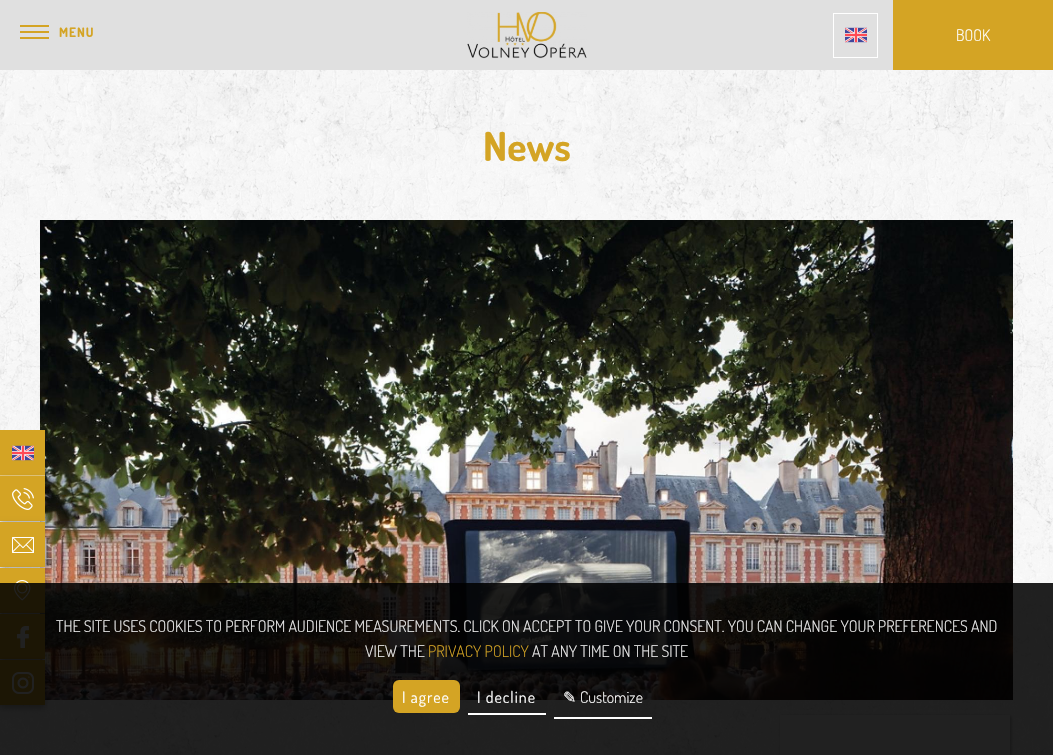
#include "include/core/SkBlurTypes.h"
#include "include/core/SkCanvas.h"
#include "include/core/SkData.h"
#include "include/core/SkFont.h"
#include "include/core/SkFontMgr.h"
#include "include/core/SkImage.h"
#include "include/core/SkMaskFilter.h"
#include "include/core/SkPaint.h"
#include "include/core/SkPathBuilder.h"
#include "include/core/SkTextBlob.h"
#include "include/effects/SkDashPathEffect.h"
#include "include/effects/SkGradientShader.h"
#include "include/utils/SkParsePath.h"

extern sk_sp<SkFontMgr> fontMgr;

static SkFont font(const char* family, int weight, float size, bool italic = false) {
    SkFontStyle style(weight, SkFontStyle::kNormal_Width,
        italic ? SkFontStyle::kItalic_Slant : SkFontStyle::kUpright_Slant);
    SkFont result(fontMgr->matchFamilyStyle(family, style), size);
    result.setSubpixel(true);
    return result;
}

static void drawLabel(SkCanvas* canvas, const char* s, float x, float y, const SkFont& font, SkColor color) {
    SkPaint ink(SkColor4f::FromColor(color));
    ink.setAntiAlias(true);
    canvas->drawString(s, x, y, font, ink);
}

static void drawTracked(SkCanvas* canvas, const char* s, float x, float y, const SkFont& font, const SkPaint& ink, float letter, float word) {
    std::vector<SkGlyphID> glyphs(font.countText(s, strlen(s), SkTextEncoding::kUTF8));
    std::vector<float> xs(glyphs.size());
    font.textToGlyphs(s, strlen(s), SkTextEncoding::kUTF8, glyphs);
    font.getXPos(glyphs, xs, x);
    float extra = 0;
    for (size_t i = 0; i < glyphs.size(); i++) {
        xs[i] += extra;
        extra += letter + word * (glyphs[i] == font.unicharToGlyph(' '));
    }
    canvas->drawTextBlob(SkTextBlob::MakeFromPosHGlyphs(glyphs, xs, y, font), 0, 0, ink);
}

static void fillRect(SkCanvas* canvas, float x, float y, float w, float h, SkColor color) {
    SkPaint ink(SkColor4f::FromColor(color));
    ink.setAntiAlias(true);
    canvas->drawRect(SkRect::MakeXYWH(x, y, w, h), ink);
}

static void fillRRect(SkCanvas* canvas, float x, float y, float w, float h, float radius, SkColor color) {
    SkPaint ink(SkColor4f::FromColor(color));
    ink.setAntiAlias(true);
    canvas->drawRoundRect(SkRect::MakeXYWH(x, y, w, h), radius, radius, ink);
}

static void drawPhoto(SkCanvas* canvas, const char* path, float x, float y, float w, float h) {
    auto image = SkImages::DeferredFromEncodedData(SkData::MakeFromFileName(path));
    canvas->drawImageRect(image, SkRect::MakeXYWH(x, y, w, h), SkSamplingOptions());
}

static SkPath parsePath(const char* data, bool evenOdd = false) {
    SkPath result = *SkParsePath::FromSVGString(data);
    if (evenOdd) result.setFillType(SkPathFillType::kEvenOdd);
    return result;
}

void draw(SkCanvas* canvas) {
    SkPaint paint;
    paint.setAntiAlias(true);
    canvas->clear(0xFFFFFFFF);
    drawPhoto(canvas, "assets/img1.png", 0, 70, 1053, 685);
    fillRect(canvas, 0, 0, 893, 70, 0xFFE0E0E0);
    fillRect(canvas, 20, 25, 29, 2, 0xFFD4A424);
    fillRect(canvas, 20, 31, 29, 2, 0xFFD4A424);
    fillRect(canvas, 20, 37, 29, 2, 0xFFD4A424);
    SkFont font1 = font("Dosis", 700, 13);
    paint.setColor(0xFFD4A424);
    drawTracked(canvas, "MENU", 59, 37, font1, paint, 1, 0);
    drawPhoto(canvas, "assets/img2.png", 467, 12, 120, 47);
    paint.setStroke(true);
    paint.setStrokeWidth(1);
    paint.setColor(0xFFFFFFFF);
    canvas->drawRect(SkRect::MakeXYWH(833.5f, 13.5f, 44, 44), paint);
    drawPhoto(canvas, "assets/img3.png", 845, 27, 22, 16);
    fillRect(canvas, 893, 0, 160, 70, 0xFFD4A424);
    SkFont font2 = font("Dosis", 300, 16);
    drawLabel(canvas, "BOOK", 956, 41, font2, 0xFFFFFFFF);
    SkFont font3 = font("Dosis", 700, 40);
    drawLabel(canvas, "News", 483, 161, font3, 0xFFD4A424);
    drawPhoto(canvas, "assets/img4.png", 40, 220, 973, 480);
    fillRect(canvas, 0, 430, 45, 45, 0xFFD4A424);
    fillRect(canvas, 0, 475, 45, 1, 0xFFE5C87C);
    drawPhoto(canvas, "assets/img5.png", 12, 445, 22, 16);
    fillRect(canvas, 0, 521, 45, 1, 0x66FFFFFF);
    paint.setStroke(false);
    paint.setColor(0x4A000000);
    paint.setMaskFilter(SkMaskFilter::MakeBlur(kNormal_SkBlurStyle, 3));
    canvas->drawRect(SkRect::MakeXYWH(0, 479, 45, 45), paint);
    paint.setMaskFilter(nullptr);
    fillRect(canvas, 0, 476, 45, 45, 0xFFD4A424);
    drawPhoto(canvas, "assets/img6.png", 12, 488, 22, 22);
    fillRect(canvas, 0, 567, 45, 1, 0x66FFFFFF);
    paint.setMaskFilter(SkMaskFilter::MakeBlur(kNormal_SkBlurStyle, 3));
    canvas->drawRect(SkRect::MakeXYWH(0, 525, 45, 45), paint);
    paint.setMaskFilter(nullptr);
    fillRect(canvas, 0, 522, 45, 45, 0xFFD4A424);
    drawPhoto(canvas, "assets/img7.png", 12, 537, 22, 16);
    fillRect(canvas, 0, 613, 45, 1, 0x66FFFFFF);
    paint.setMaskFilter(SkMaskFilter::MakeBlur(kNormal_SkBlurStyle, 3));
    canvas->drawRect(SkRect::MakeXYWH(0, 571, 45, 45), paint);
    paint.setMaskFilter(nullptr);
    fillRect(canvas, 0, 568, 45, 45, 0xFFD4A424);
    drawPhoto(canvas, "assets/img8.png", 14, 580, 17, 21);
    fillRect(canvas, 0, 659, 45, 1, 0x66FFFFFF);
    paint.setMaskFilter(SkMaskFilter::MakeBlur(kNormal_SkBlurStyle, 3));
    canvas->drawRect(SkRect::MakeXYWH(0, 617, 45, 45), paint);
    paint.setMaskFilter(nullptr);
    fillRect(canvas, 0, 614, 45, 45, 0xFFD4A424);
    drawPhoto(canvas, "assets/img9.png", 17, 626, 12, 22);
    paint.setMaskFilter(SkMaskFilter::MakeBlur(kNormal_SkBlurStyle, 3));
    canvas->drawRect(SkRect::MakeXYWH(0, 663, 45, 45), paint);
    paint.setMaskFilter(nullptr);
    fillRect(canvas, 0, 660, 45, 45, 0xFFD4A424);
    drawPhoto(canvas, "assets/img10.png", 12, 672, 22, 22);
    canvas->save();
    canvas->clipPath(parsePath("M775 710H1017V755H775ZM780 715H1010V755H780Z", true), true);
    paint.setColor(0x57000000);
    paint.setMaskFilter(SkMaskFilter::MakeBlur(kNormal_SkBlurStyle, 1.5f));
    canvas->drawRect(SkRect::MakeXYWH(781, 716, 230, 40), paint);
    paint.setMaskFilter(nullptr);
    canvas->restore();
    fillRect(canvas, 780, 715, 230, 40, 0xE6FFFFFF);
    fillRect(canvas, 0, 583, 1053, 172, 0xDE000000);
    drawLabel(canvas, "THE SITE USES COOKIES TO PERFORM AUDIENCE MEASUREMENTS. CLICK ON ACCEPT TO GIVE YOUR CONSENT. YOU CAN CHANGE YOUR PREFERENCES AND", 56, 632, font2, 0xFFEEEEEE);
    drawLabel(canvas, "VIEW THE", 365, 657, font2, 0xFFEEEEEE);
    drawLabel(canvas, "PRIVACY POLICY", 428, 657, font2, 0xFFD4A424);
    drawLabel(canvas, "AT ANY TIME ON THE SITE", 532, 657, font2, 0xFFEEEEEE);
    fillRRect(canvas, 393, 680, 67, 33, 6, 0xFFD4A424);
    SkFont font4 = font("Dosis", 400, 16);
    paint.setColor(0xFFFFFFFF);
    drawTracked(canvas, "I agree", 402, 703, font4, paint, 1, 0);
    fillRect(canvas, 468, 713, 78, 2, 0xFFFFFFFF);
    drawTracked(canvas, "I decline", 477, 703, font4, paint, 1, 0);
    fillRect(canvas, 554, 717, 98, 2, 0xFFFFFFFF);
    SkFont font5 = font("DejaVu Sans", 400, 16);
    drawLabel(canvas, "✎", 563, 703, font5, 0xFFFFFFFF);
    drawLabel(canvas, "Customize", 580, 703, font2, 0xFFFFFFFF);
}
